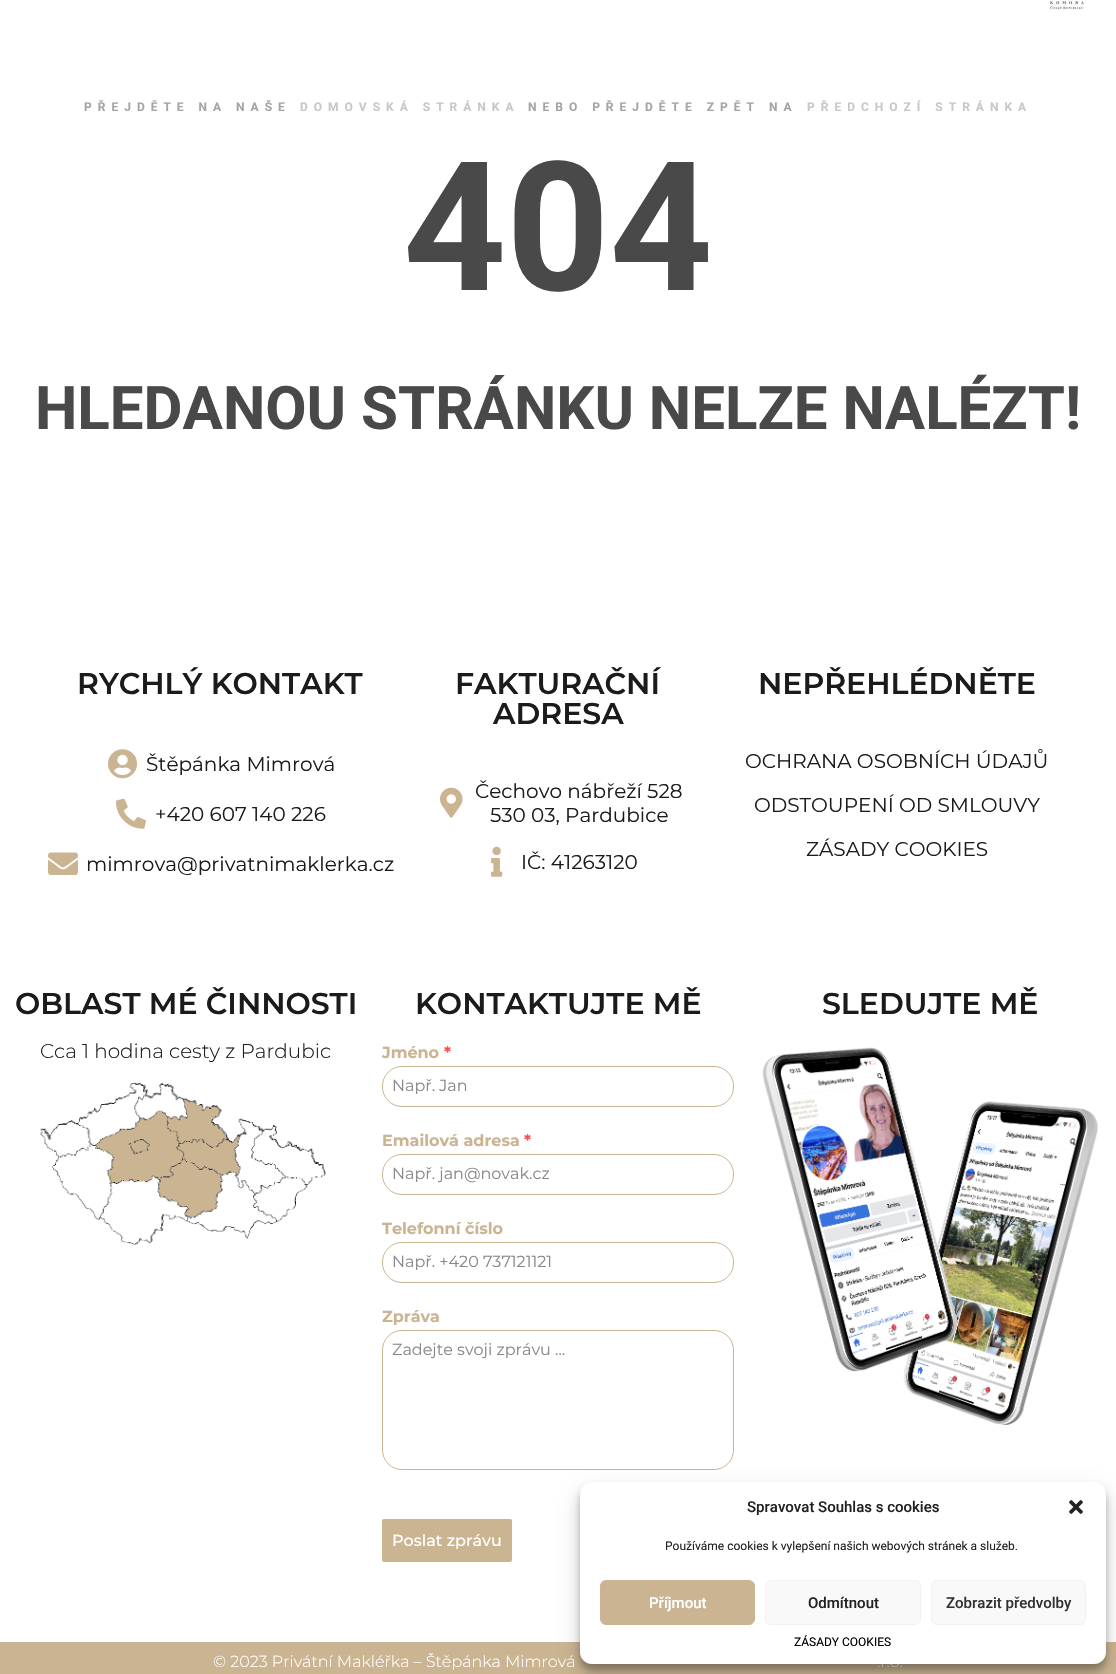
#include "include/core/SkBlurTypes.h"
#include "include/core/SkCanvas.h"
#include "include/core/SkData.h"
#include "include/core/SkFont.h"
#include "include/core/SkFontMgr.h"
#include "include/core/SkImage.h"
#include "include/core/SkMaskFilter.h"
#include "include/core/SkPaint.h"
#include "include/core/SkPathBuilder.h"
#include "include/core/SkTextBlob.h"
#include "include/effects/SkDashPathEffect.h"
#include "include/effects/SkGradientShader.h"
#include "include/utils/SkParsePath.h"

extern sk_sp<SkFontMgr> fontMgr;

static SkFont font(const char* family, int weight, float size, bool italic = false) {
    SkFontStyle style(weight, SkFontStyle::kNormal_Width,
        italic ? SkFontStyle::kItalic_Slant : SkFontStyle::kUpright_Slant);
    SkFont result(fontMgr->matchFamilyStyle(family, style), size);
    result.setSubpixel(true);
    return result;
}

static void drawLabel(SkCanvas* canvas, const char* s, float x, float y, const SkFont& font, SkColor color) {
    SkPaint ink(SkColor4f::FromColor(color));
    ink.setAntiAlias(true);
    canvas->drawString(s, x, y, font, ink);
}

static void drawTracked(SkCanvas* canvas, const char* s, float x, float y, const SkFont& font, const SkPaint& ink, float letter, float word) {
    std::vector<SkGlyphID> glyphs(font.countText(s, strlen(s), SkTextEncoding::kUTF8));
    std::vector<float> xs(glyphs.size());
    font.textToGlyphs(s, strlen(s), SkTextEncoding::kUTF8, glyphs);
    font.getXPos(glyphs, xs, x);
    float extra = 0;
    for (size_t i = 0; i < glyphs.size(); i++) {
        xs[i] += extra;
        extra += letter + word * (glyphs[i] == font.unicharToGlyph(' '));
    }
    canvas->drawTextBlob(SkTextBlob::MakeFromPosHGlyphs(glyphs, xs, y, font), 0, 0, ink);
}

static void fillRect(SkCanvas* canvas, float x, float y, float w, float h, SkColor color) {
    SkPaint ink(SkColor4f::FromColor(color));
    ink.setAntiAlias(true);
    canvas->drawRect(SkRect::MakeXYWH(x, y, w, h), ink);
}

static void fillRRect(SkCanvas* canvas, float x, float y, float w, float h, float radius, SkColor color) {
    SkPaint ink(SkColor4f::FromColor(color));
    ink.setAntiAlias(true);
    canvas->drawRoundRect(SkRect::MakeXYWH(x, y, w, h), radius, radius, ink);
}

static void drawPhoto(SkCanvas* canvas, const char* path, float x, float y, float w, float h) {
    auto image = SkImages::DeferredFromEncodedData(SkData::MakeFromFileName(path));
    canvas->drawImageRect(image, SkRect::MakeXYWH(x, y, w, h), SkSamplingOptions());
}

void draw(SkCanvas* canvas) {
    SkPaint paint;
    paint.setAntiAlias(true);
    canvas->clear(0xFFFFFFFF);
    drawPhoto(canvas, "assets/img1.png", 1050, 0, 34, 10);
    SkFont font1 = font("Roboto", 700, 12);
    paint.setColor(0xFFA4A4A4);
    drawTracked(canvas, "PŘEJDĚTE NA NAŠE", 84, 111, font1, paint, 6, 0);
    paint.setColor(0xFFC8C8C8);
    drawTracked(canvas, "DOMOVSKÁ STRÁNKA", 300, 111, font1, paint, 6, 0);
    paint.setColor(0xFFA4A4A4);
    drawTracked(canvas, "NEBO PŘEJDĚTE ZPĚT NA", 528, 111, font1, paint, 6, 0);
    paint.setColor(0xFFC8C8C8);
    drawTracked(canvas, "PŘEDCHOZÍ STRÁNKA", 807, 111, font1, paint, 6, 0);
    SkFont font2 = font("Roboto", 700, 180);
    drawLabel(canvas, "404", 403, 290, font2, 0xFF494949);
    SkFont font3 = font("Roboto", 700, 60);
    drawLabel(canvas, "HLEDANOU STRÁNKU NELZE NALÉZT!", 35, 429, font3, 0xFF494949);
    SkFont font4 = font("Montserrat", 600, 30);
    drawLabel(canvas, "RYCHLÝ KONTAKT", 77, 694, font4, 0xFF1B1B1B);
    drawPhoto(canvas, "assets/img2.png", 108, 749, 29, 30);
    SkFont font5 = font("Montserrat", 100, 20);
    drawLabel(canvas, "Štěpánka Mimrová", 146, 771, font5, 0xFF1B1B1B);
    drawPhoto(canvas, "assets/img3.png", 116, 798, 30, 31);
    drawLabel(canvas, "+420 607 140 226", 155, 821, font5, 0xFF1B1B1B);
    drawPhoto(canvas, "assets/img4.png", 48, 852, 30, 23);
    drawLabel(canvas, "mimrova@privatnimaklerka.cz", 86, 871, font5, 0xFF1B1B1B);
    drawLabel(canvas, "FAKTURAČNÍ", 455, 694, font4, 0xFF1B1B1B);
    drawLabel(canvas, "ADRESA", 493, 724, font4, 0xFF1B1B1B);
    drawPhoto(canvas, "assets/img5.png", 440, 787, 23, 31);
    drawLabel(canvas, "Čechovo nábřeží 528", 475, 798, font5, 0xFF1B1B1B);
    drawLabel(canvas, "530 03, Pardubice", 490, 822, font5, 0xFF1B1B1B);
    drawPhoto(canvas, "assets/img6.png", 491, 846, 12, 31);
    drawLabel(canvas, "IČ: 41263120", 521, 869, font5, 0xFF1B1B1B);
    drawLabel(canvas, "NEPŘEHLÉDNĚTE", 758, 694, font4, 0xFF1B1B1B);
    drawLabel(canvas, "OCHRANA OSOBNÍCH ÚDAJŮ", 745, 768, font5, 0xFF1B1B1B);
    drawLabel(canvas, "ODSTOUPENÍ OD SMLOUVY", 754, 812, font5, 0xFF1B1B1B);
    drawLabel(canvas, "ZÁSADY COOKIES", 806, 856, font5, 0xFF1B1B1B);
    drawLabel(canvas, "OBLAST MÉ ČINNOSTI", 15, 1014, font4, 0xFF1B1B1B);
    SkFont font6 = font("Montserrat", 300, 20);
    drawLabel(canvas, "Cca 1 hodina cesty z Pardubic", 40, 1058, font6, 0xFF1B1B1B);
    drawPhoto(canvas, "assets/img7.png", 39, 1083, 287, 162);
    drawLabel(canvas, "KONTAKTUJTE MĚ", 415, 1014, font4, 0xFF1B1B1B);
    SkFont font7 = font("Montserrat", 700, 16);
    drawLabel(canvas, "Jméno", 382, 1058, font7, 0xFFCBB492);
    drawLabel(canvas, "*", 444, 1058, font7, 0xFFF74C4C);
    paint.setStroke(true);
    paint.setStrokeWidth(1);
    paint.setColor(0xFFCBB492);
    canvas->drawRoundRect(SkRect::MakeXYWH(382.5f, 1066.5f, 351, 40), 19.5f, 19.5f, paint);
    SkFont font8 = font("Montserrat", 100, 16);
    drawLabel(canvas, "Např. Jan", 392, 1091, font8, 0xFF888888);
    drawLabel(canvas, "Emailová adresa", 382, 1146, font7, 0xFFCBB492);
    drawLabel(canvas, "*", 524, 1146, font7, 0xFFF74C4C);
    canvas->drawRoundRect(SkRect::MakeXYWH(382.5f, 1154.5f, 351, 40), 19.5f, 19.5f, paint);
    drawLabel(canvas, "Např. jan@novak.cz", 392, 1179, font8, 0xFF888888);
    drawLabel(canvas, "Telefonní číslo", 382, 1234, font7, 0xFFCBB492);
    canvas->drawRoundRect(SkRect::MakeXYWH(382.5f, 1242.5f, 351, 40), 19.5f, 19.5f, paint);
    drawLabel(canvas, "Např. +420 737121121", 392, 1267, font8, 0xFF888888);
    drawLabel(canvas, "Zpráva", 382, 1322, font7, 0xFFCBB492);
    canvas->drawRoundRect(SkRect::MakeXYWH(382.5f, 1330.5f, 351, 139), 19.5f, 19.5f, paint);
    drawLabel(canvas, "Zadejte svoji zprávu ...", 392, 1355, font8, 0xFF888888);
    fillRRect(canvas, 382, 1519, 130, 43, 2, 0xFFCBB492);
    SkFont font9 = font("Montserrat", 500, 16);
    drawLabel(canvas, "Poslat zprávu", 392, 1546, font9, 0xFFFFFFFF);
    drawLabel(canvas, "SLEDUJTE MĚ", 822, 1014, font4, 0xFF1B1B1B);
    drawPhoto(canvas, "assets/img8.png", 762, 1047, 337, 378);
    fillRect(canvas, 0, 1642, 1116, 32, 0xFFCBB492);
    SkFont font10 = font("Montserrat", 300, 16);
    drawLabel(canvas, "© 2023 Privátní Makléřka – Štěpánka Mimrová", 213, 1667, font10, 0xFFFFFFFF);
    drawLabel(canvas, ".r.o.", 877, 1667, font10, 0xFFFFFFFF);
    paint.setStroke(false);
    paint.setColor(0x3B000000);
    paint.setMaskFilter(SkMaskFilter::MakeBlur(kNormal_SkBlurStyle, 3));
    canvas->drawRoundRect(SkRect::MakeXYWH(580, 1488, 526, 182), 12, 12, paint);
    paint.setMaskFilter(nullptr);
    paint.setColor(0x30000000);
    paint.setMaskFilter(SkMaskFilter::MakeBlur(kNormal_SkBlurStyle, 10));
    canvas->drawRoundRect(SkRect::MakeXYWH(580, 1492, 526, 182), 12, 12, paint);
    paint.setMaskFilter(nullptr);
    fillRRect(canvas, 580, 1482, 526, 182, 12, 0xFFFFFFFF);
    SkFont font11 = font("Roboto", 500, 15);
    drawLabel(canvas, "Spravovat Souhlas s cookies", 747, 1512, font11, 0xFF222222);
    drawPhoto(canvas, "assets/img9.png", 1069, 1500, 14, 14);
    SkFont font12 = font("Roboto", 400, 12);
    drawLabel(canvas, "Používáme cookies k vylepšení našich webových stránek a služeb.", 665, 1550, font12, 0xFF222222);
    paint.setColor(0xFFCBB492);
    canvas->drawRoundRect(SkRect::MakeXYWH(600.5f, 1580.5f, 154, 44), 5.5f, 5.5f, paint);
    paint.setStroke(true);
    canvas->drawRoundRect(SkRect::MakeXYWH(600.5f, 1580.5f, 154, 44), 5.5f, 5.5f, paint);
    drawLabel(canvas, "Příjmout", 649, 1608, font11, 0xFFFFFFFF);
    paint.setStroke(false);
    paint.setColor(0xFFF9F9F9);
    canvas->drawRoundRect(SkRect::MakeXYWH(765.5f, 1580.5f, 155, 44), 5.5f, 5.5f, paint);
    paint.setStroke(true);
    paint.setColor(0xFFF2F2F2);
    canvas->drawRoundRect(SkRect::MakeXYWH(765.5f, 1580.5f, 155, 44), 5.5f, 5.5f, paint);
    drawLabel(canvas, "Odmítnout", 808, 1608, font11, 0xFF222222);
    paint.setStroke(false);
    paint.setColor(0xFFF9F9F9);
    canvas->drawRoundRect(SkRect::MakeXYWH(931.5f, 1580.5f, 154, 44), 5.5f, 5.5f, paint);
    paint.setStroke(true);
    paint.setColor(0xFFF2F2F2);
    canvas->drawRoundRect(SkRect::MakeXYWH(931.5f, 1580.5f, 154, 44), 5.5f, 5.5f, paint);
    drawLabel(canvas, "Zobrazit předvolby", 946, 1608, font11, 0xFF333333);
    drawLabel(canvas, "ZÁSADY COOKIES", 794, 1646, font12, 0xFF000000);
}
